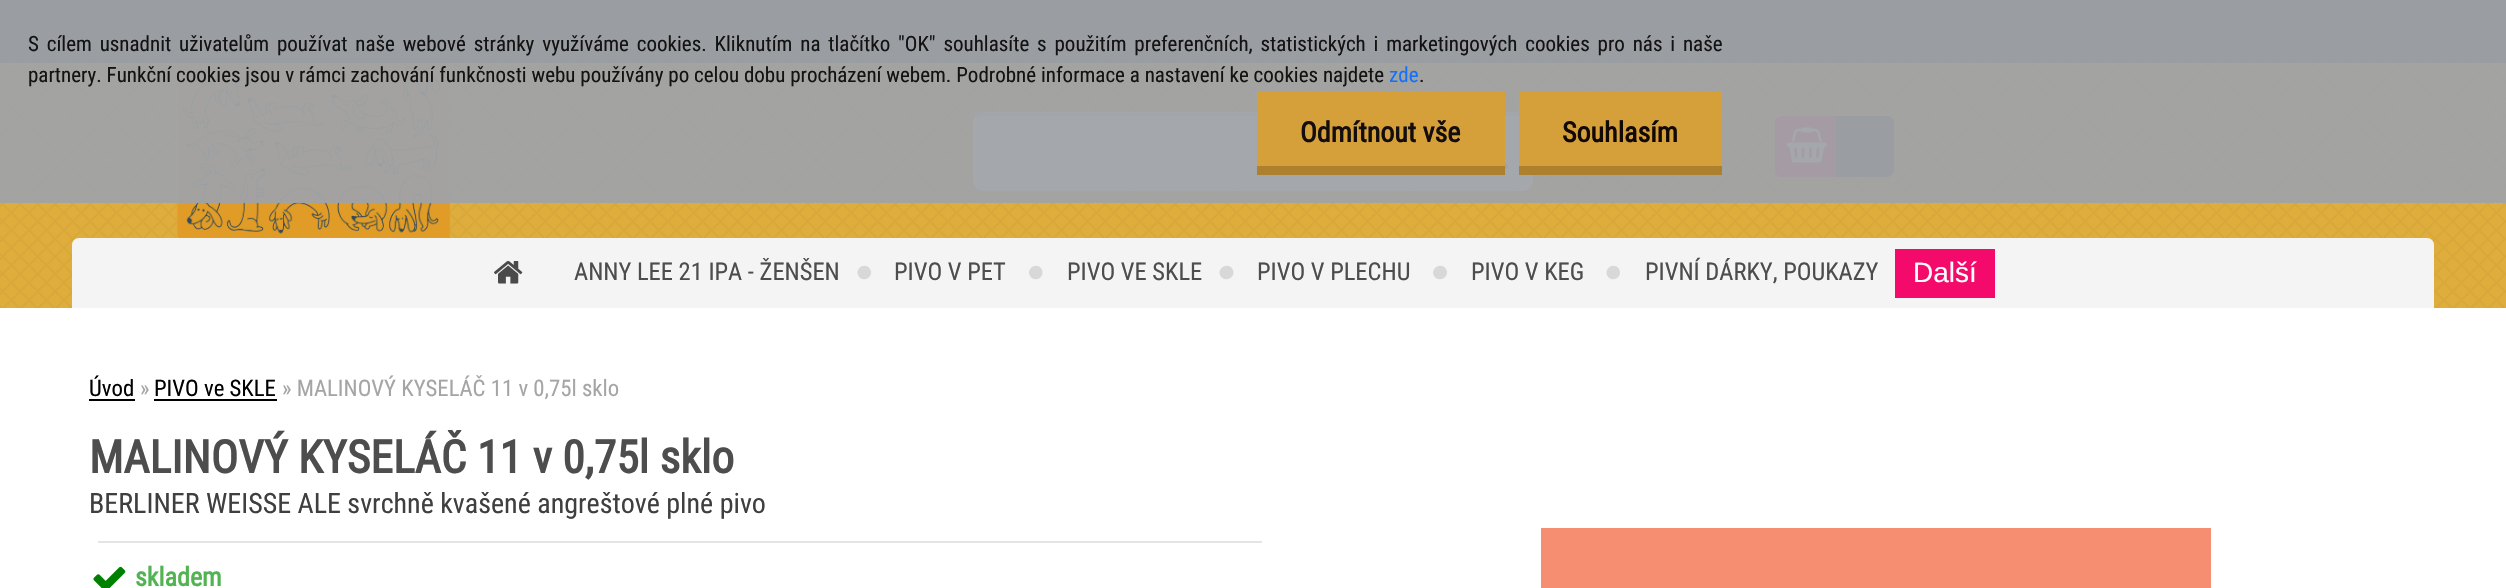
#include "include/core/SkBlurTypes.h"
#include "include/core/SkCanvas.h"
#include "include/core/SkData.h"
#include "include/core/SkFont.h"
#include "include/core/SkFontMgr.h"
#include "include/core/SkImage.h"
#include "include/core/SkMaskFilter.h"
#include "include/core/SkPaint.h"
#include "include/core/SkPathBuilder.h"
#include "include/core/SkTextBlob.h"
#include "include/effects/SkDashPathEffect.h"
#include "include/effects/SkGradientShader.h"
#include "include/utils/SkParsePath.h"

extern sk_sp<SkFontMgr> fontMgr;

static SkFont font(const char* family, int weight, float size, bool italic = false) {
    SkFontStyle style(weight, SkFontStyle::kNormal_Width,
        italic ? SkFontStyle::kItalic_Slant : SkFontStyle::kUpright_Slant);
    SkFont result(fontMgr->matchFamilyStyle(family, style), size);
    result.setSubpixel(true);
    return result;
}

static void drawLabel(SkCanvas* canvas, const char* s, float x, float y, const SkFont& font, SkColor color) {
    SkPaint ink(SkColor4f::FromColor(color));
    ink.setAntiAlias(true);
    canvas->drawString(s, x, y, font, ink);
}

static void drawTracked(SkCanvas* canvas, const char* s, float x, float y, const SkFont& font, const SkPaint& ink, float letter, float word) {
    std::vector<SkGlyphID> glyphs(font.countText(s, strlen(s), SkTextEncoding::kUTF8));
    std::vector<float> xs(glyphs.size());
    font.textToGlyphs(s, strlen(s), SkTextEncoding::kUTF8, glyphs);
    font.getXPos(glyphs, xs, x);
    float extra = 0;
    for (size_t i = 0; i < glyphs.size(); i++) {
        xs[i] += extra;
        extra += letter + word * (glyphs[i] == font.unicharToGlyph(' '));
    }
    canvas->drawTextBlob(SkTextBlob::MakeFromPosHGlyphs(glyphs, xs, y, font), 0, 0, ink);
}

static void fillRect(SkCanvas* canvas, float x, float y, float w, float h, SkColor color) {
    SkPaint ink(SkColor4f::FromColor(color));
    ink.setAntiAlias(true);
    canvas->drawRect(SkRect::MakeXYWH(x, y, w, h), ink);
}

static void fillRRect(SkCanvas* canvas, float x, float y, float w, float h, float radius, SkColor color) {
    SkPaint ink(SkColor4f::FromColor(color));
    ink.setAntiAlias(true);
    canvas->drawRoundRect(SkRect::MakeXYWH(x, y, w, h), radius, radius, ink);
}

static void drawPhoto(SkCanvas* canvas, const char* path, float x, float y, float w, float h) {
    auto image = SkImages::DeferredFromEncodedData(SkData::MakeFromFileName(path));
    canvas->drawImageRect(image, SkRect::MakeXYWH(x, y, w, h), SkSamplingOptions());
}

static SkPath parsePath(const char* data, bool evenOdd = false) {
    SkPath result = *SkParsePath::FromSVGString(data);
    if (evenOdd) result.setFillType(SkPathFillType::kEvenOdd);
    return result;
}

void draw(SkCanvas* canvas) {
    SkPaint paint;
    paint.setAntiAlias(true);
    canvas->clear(0xFFFFFFFF);
    fillRect(canvas, 0, 0, 2506, 63, 0xFF313030);
    fillRect(canvas, 0, 63, 2506, 245, 0xFFDEAD3B);
    drawPhoto(canvas, "assets/img1.png", 0, 63, 2506, 245);
    drawPhoto(canvas, "assets/img2.png", 176, 63, 274, 175);
    fillRRect(canvas, 973, 112, 560, 79, 11, 0xFFF8F8F8);
    paint.setColor(0xFFCCCCCC);
    canvas->drawPath(parsePath("M984 112C980 112 977 114 975 116L976 119C978 117 981 116 984 116H1522C1525 116 1528 117 1530 119L1531 116C1529 114 1526 112 1522 112Z"), paint);
    drawPhoto(canvas, "assets/img3.png", 1480, 141, 29, 28);
    paint.setColor(0xFFF40A6A);
    canvas->drawPath(parsePath("M1782 116H1836V177H1782C1778 177 1775 174 1775 170V123C1775 119 1778 116 1782 116Z"), paint);
    drawPhoto(canvas, "assets/img4.png", 1786, 127, 41, 36);
    paint.setColor(0xFF313030);
    canvas->drawPath(parsePath("M1836 116H1887C1891 116 1894 119 1894 123V170C1894 174 1891 177 1887 177H1836Z"), paint);
    fillRect(canvas, 0, 0, 2506, 203, 0xF29FA2A6);
    SkFont font1 = font("Roboto Condensed", 400, 21);
    paint.setColor(0xFF141313);
    drawTracked(canvas, "S cílem usnadnit uživatelům používat naše webové stránky využíváme cookies. Kliknutím na tlačítko \"OK\" souhlasíte s použitím preferenčních, statistických i marketingových cookies pro nás i naše", 28, 51, font1, paint, 0, 3);
    drawLabel(canvas, "partnery. Funkční cookies jsou v rámci zachování funkčnosti webu používány po celou dobu procházení webem. Podrobné informace a nastavení ke cookies najdete", 28, 82, font1, 0xFF141313);
    drawLabel(canvas, "zde", 1389, 82, font1, 0xFF1471F8);
    drawLabel(canvas, ".", 1419, 82, font1, 0xFF141313);
    fillRect(canvas, 1257, 91, 248, 75, 0xF2D79E34);
    fillRect(canvas, 1257, 166, 248, 9, 0xFFAC802F);
    SkFont font2 = font("Roboto Condensed", 700, 28);
    drawLabel(canvas, "Odmítnout vše", 1300, 142, font2, 0xFF140D0D);
    fillRect(canvas, 1519, 91, 203, 75, 0xF2D79E34);
    fillRect(canvas, 1519, 166, 203, 9, 0xFFAC802F);
    drawLabel(canvas, "Souhlasím", 1562, 142, font2, 0xFF120904);
    paint.setColor(0xFFF4F4F4);
    canvas->drawPath(parsePath("M79 238H2427C2431 238 2434 241 2434 245V308H72V245C72 241 75 238 79 238Z"), paint);
    drawPhoto(canvas, "assets/img5.png", 494, 261, 29, 23);
    SkFont font3 = font("Roboto Condensed", 400, 24.5f);
    drawLabel(canvas, "ANNY LEE 21 IPA - ŽENŠEN", 574, 280, font3, 0xFF4D4D4D);
    paint.setColor(0xFFD8D8D8);
    canvas->drawPath(parsePath("M870 269C874.5 277 863 283.5 858.5 276C854 268.5 865.5 261.5 870 269Z"), paint);
    drawLabel(canvas, "PIVO V PET", 894, 280, font3, 0xFF4D4D4D);
    canvas->drawPath(parsePath("M1041.5 269C1046 277 1034.5 283.5 1030 276C1025.5 268.5 1037 261.5 1041.5 269Z"), paint);
    drawLabel(canvas, "PIVO VE SKLE", 1067, 280, font3, 0xFF4D4D4D);
    canvas->drawPath(parsePath("M1232.5 269C1237 277 1225 283.5 1220.5 276C1216 268.5 1228 261.5 1232.5 269Z"), paint);
    drawLabel(canvas, "PIVO V PLECHU", 1257, 280, font3, 0xFF4D4D4D);
    canvas->drawPath(parsePath("M1446 269C1450.5 277 1438.5 283.5 1434 276C1429.5 268.5 1441.5 261.5 1446 269Z"), paint);
    drawLabel(canvas, "PIVO V KEG", 1471, 280, font3, 0xFF4D4D4D);
    canvas->drawPath(parsePath("M1619 269C1623.5 277 1612 283.5 1607.5 276C1603 268.5 1614.5 261.5 1619 269Z"), paint);
    drawLabel(canvas, "PIVNÍ DÁRKY, POUKAZY", 1645, 280, font3, 0xFF4D4D4D);
    fillRect(canvas, 1895, 249, 100, 49, 0xFFF40A6A);
    SkFont font4 = font("Liberation Sans", 400, 28);
    drawLabel(canvas, "Další", 1913, 282, font4, 0xFFFFFFFF);
    SkFont font5 = font("Roboto Condensed", 400, 22.75f);
    drawLabel(canvas, "Úvod", 89, 396, font5, 0xFF000000);
    fillRect(canvas, 89, 399, 46, 2, 0xFF000000);
    drawLabel(canvas, "»", 140, 396, font5, 0xFFA5A5A5);
    drawLabel(canvas, "PIVO ve SKLE", 154, 396, font5, 0xFF000000);
    fillRect(canvas, 154, 399, 123, 2, 0xFF000000);
    drawLabel(canvas, "» MALINOVÝ KYSELÁČ 11 v 0,75l sklo", 282, 396, font5, 0xFFA5A5A5);
    SkFont font6 = font("Roboto Condensed", 700, 45.5f);
    drawLabel(canvas, "MALINOVÝ KYSELÁČ 11 v 0,75l sklo", 89, 473, font6, 0xFF4D4D4D);
    SkFont font7 = font("Roboto Condensed", 400, 28);
    drawLabel(canvas, "BERLINER WEISSE ALE svrchně kvašené angreštové plné pivo", 89, 513, font7, 0xFF3F3F3F);
    fillRect(canvas, 98, 541, 1164, 2, 0xFFE4E4E4);
    drawPhoto(canvas, "assets/img6.png", 93, 566, 33, 22);
    SkFont font8 = font("Roboto Condensed", 700, 26);
    drawLabel(canvas, "skladem", 135, 586, font8, 0xFF51B351);
    fillRect(canvas, 1541, 528, 670, 60, 0xFFF68E71);
}
